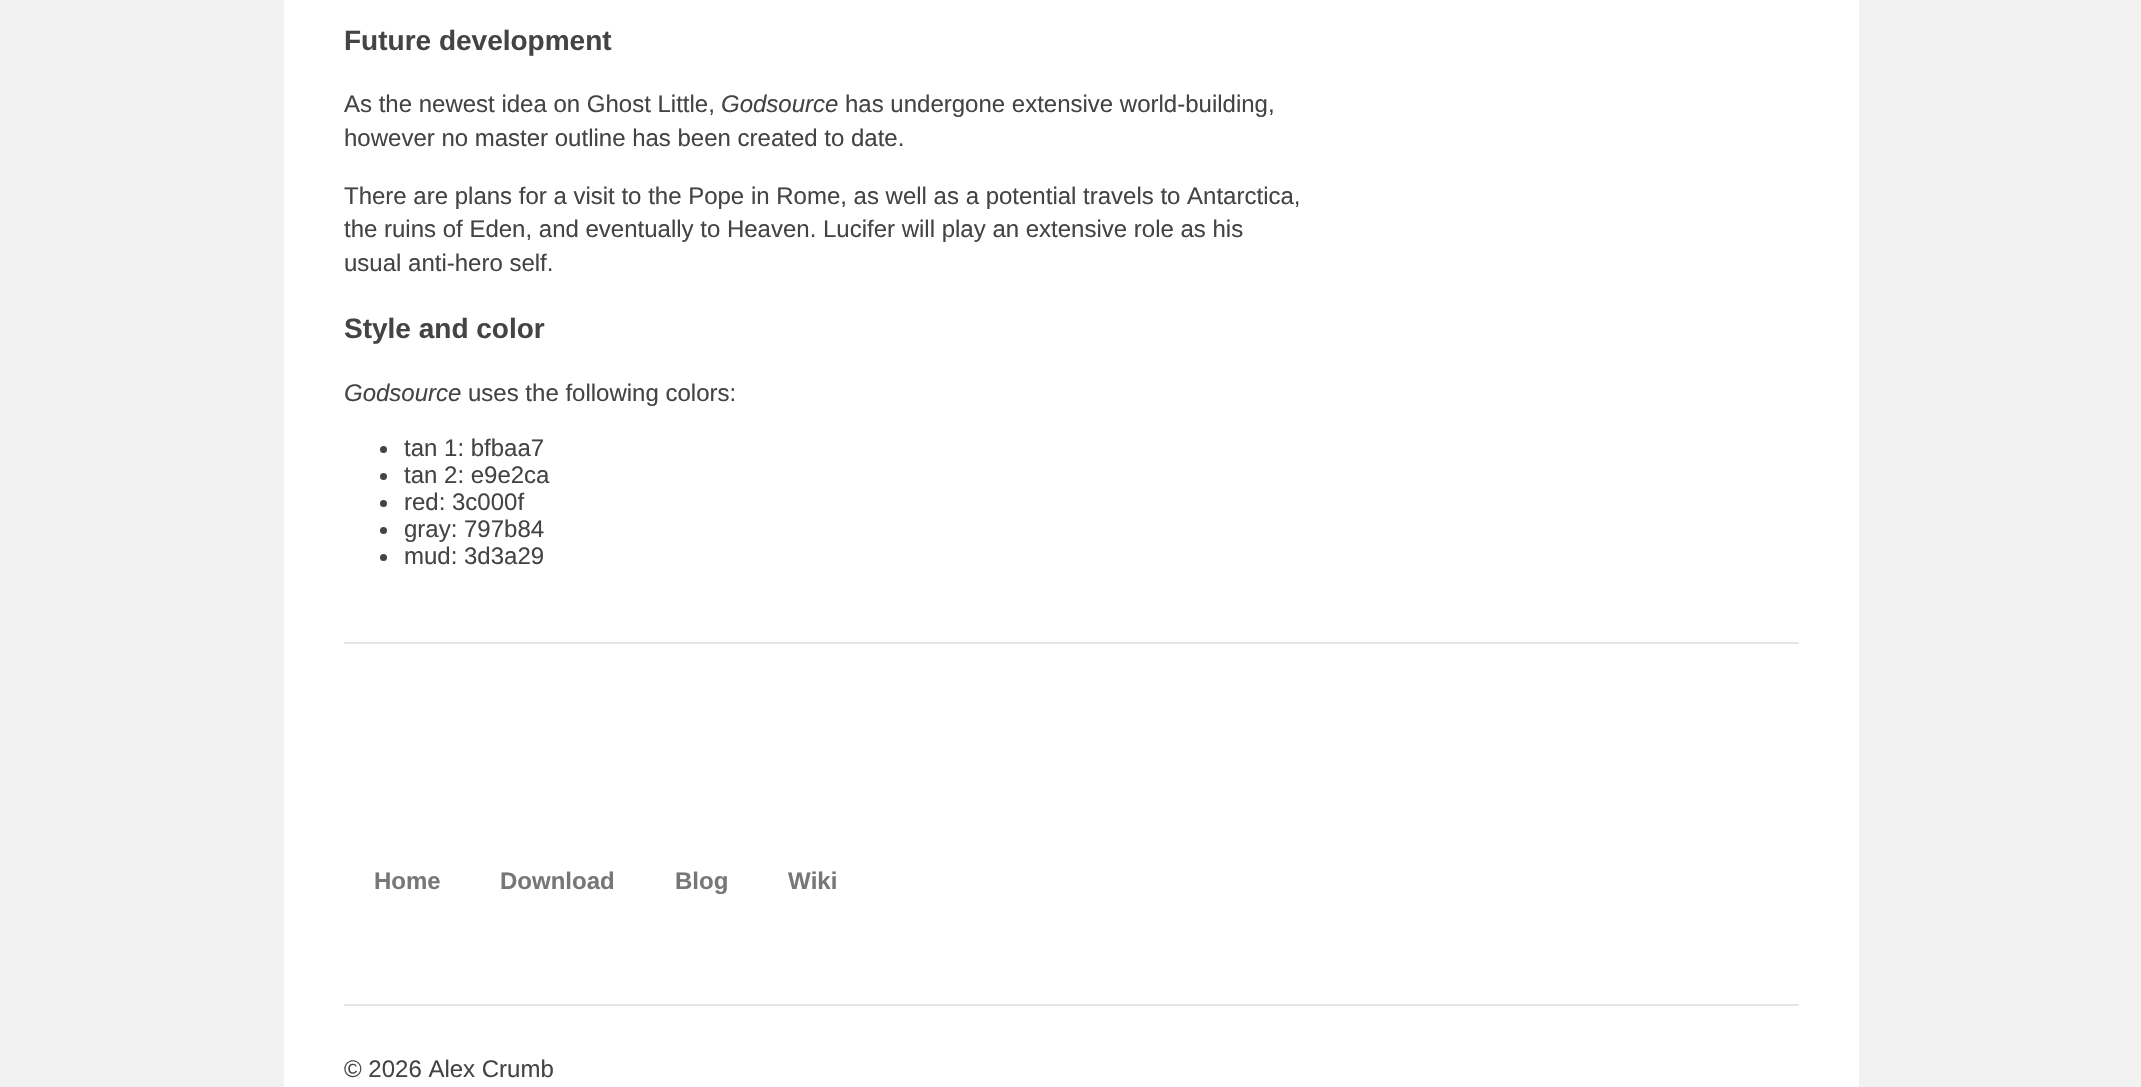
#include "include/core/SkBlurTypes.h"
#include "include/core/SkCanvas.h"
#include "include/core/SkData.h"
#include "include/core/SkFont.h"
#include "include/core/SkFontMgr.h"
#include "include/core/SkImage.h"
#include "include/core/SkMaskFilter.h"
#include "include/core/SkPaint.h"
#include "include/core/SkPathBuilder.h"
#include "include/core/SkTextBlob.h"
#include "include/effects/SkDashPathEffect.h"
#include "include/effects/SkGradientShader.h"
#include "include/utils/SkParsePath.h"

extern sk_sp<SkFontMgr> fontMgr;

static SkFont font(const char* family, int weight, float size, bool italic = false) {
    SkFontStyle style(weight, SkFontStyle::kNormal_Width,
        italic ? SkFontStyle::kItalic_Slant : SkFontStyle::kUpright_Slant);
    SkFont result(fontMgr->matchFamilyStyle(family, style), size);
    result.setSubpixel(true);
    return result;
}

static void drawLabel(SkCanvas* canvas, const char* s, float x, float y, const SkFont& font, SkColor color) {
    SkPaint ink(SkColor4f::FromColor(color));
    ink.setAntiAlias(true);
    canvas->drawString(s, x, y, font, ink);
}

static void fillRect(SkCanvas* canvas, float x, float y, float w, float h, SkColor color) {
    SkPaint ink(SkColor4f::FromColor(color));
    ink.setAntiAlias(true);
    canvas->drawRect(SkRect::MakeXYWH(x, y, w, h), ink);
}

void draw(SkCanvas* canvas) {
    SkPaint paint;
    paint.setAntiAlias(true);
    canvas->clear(0xFFF2F2F2);
    fillRect(canvas, 284, 0, 1575, 1087, 0xFFFFFFFF);
    fillRect(canvas, 344, 642, 1455, 2, 0xFFE6E6E6);
    SkFont font1 = font("Liberation Sans", 700, 28);
    drawLabel(canvas, "Future development", 344, 50, font1, 0xFF444444);
    SkFont font2 = font("Liberation Sans", 400, 24);
    drawLabel(canvas, "As the newest idea on Ghost Little,", 344, 112, font2, 0xFF444444);
    SkFont font3 = font("Liberation Sans", 400, 24, true);
    drawLabel(canvas, "Godsource", 721, 112, font3, 0xFF444444);
    drawLabel(canvas, "has undergone extensive world-building,", 845, 112, font2, 0xFF444444);
    drawLabel(canvas, "however no master outline has been created to date.", 344, 146, font2, 0xFF444444);
    drawLabel(canvas, "There are plans for a visit to the Pope in Rome, as well as a potential travels to Antarctica,", 344, 204, font2, 0xFF444444);
    drawLabel(canvas, "the ruins of Eden, and eventually to Heaven. Lucifer will play an extensive role as his", 344, 237, font2, 0xFF444444);
    drawLabel(canvas, "usual anti-hero self.", 344, 271, font2, 0xFF444444);
    drawLabel(canvas, "Style and color", 344, 338, font1, 0xFF444444);
    drawLabel(canvas, "Godsource", 344, 401, font3, 0xFF444444);
    drawLabel(canvas, "uses the following colors:", 468, 401, font2, 0xFF444444);
    paint.setColor(0xFF444444);
    canvas->drawCircle(383.5f, 449.5f, 3.5f, paint);
    drawLabel(canvas, "tan 1: bfbaa7", 404, 456, font2, 0xFF444444);
    canvas->drawCircle(383.5f, 476.5f, 3.5f, paint);
    drawLabel(canvas, "tan 2: e9e2ca", 404, 483, font2, 0xFF444444);
    canvas->drawCircle(383.5f, 503.5f, 3.5f, paint);
    drawLabel(canvas, "red: 3c000f", 404, 510, font2, 0xFF444444);
    canvas->drawCircle(383.5f, 530.5f, 3.5f, paint);
    drawLabel(canvas, "gray: 797b84", 404, 537, font2, 0xFF444444);
    canvas->drawCircle(383.5f, 557.5f, 3.5f, paint);
    drawLabel(canvas, "mud: 3d3a29", 404, 564, font2, 0xFF444444);
    fillRect(canvas, 344, 1004, 1455, 2, 0xFFE6E6E6);
    SkFont font4 = font("Liberation Sans", 700, 24);
    drawLabel(canvas, "Home", 374, 889, font4, 0xFF777777);
    drawLabel(canvas, "Download", 500, 889, font4, 0xFF777777);
    drawLabel(canvas, "Blog", 675, 889, font4, 0xFF777777);
    drawLabel(canvas, "Wiki", 788, 889, font4, 0xFF777777);
    drawLabel(canvas, "© 2026 Alex Crumb", 344, 1077, font2, 0xFF444444);
}
